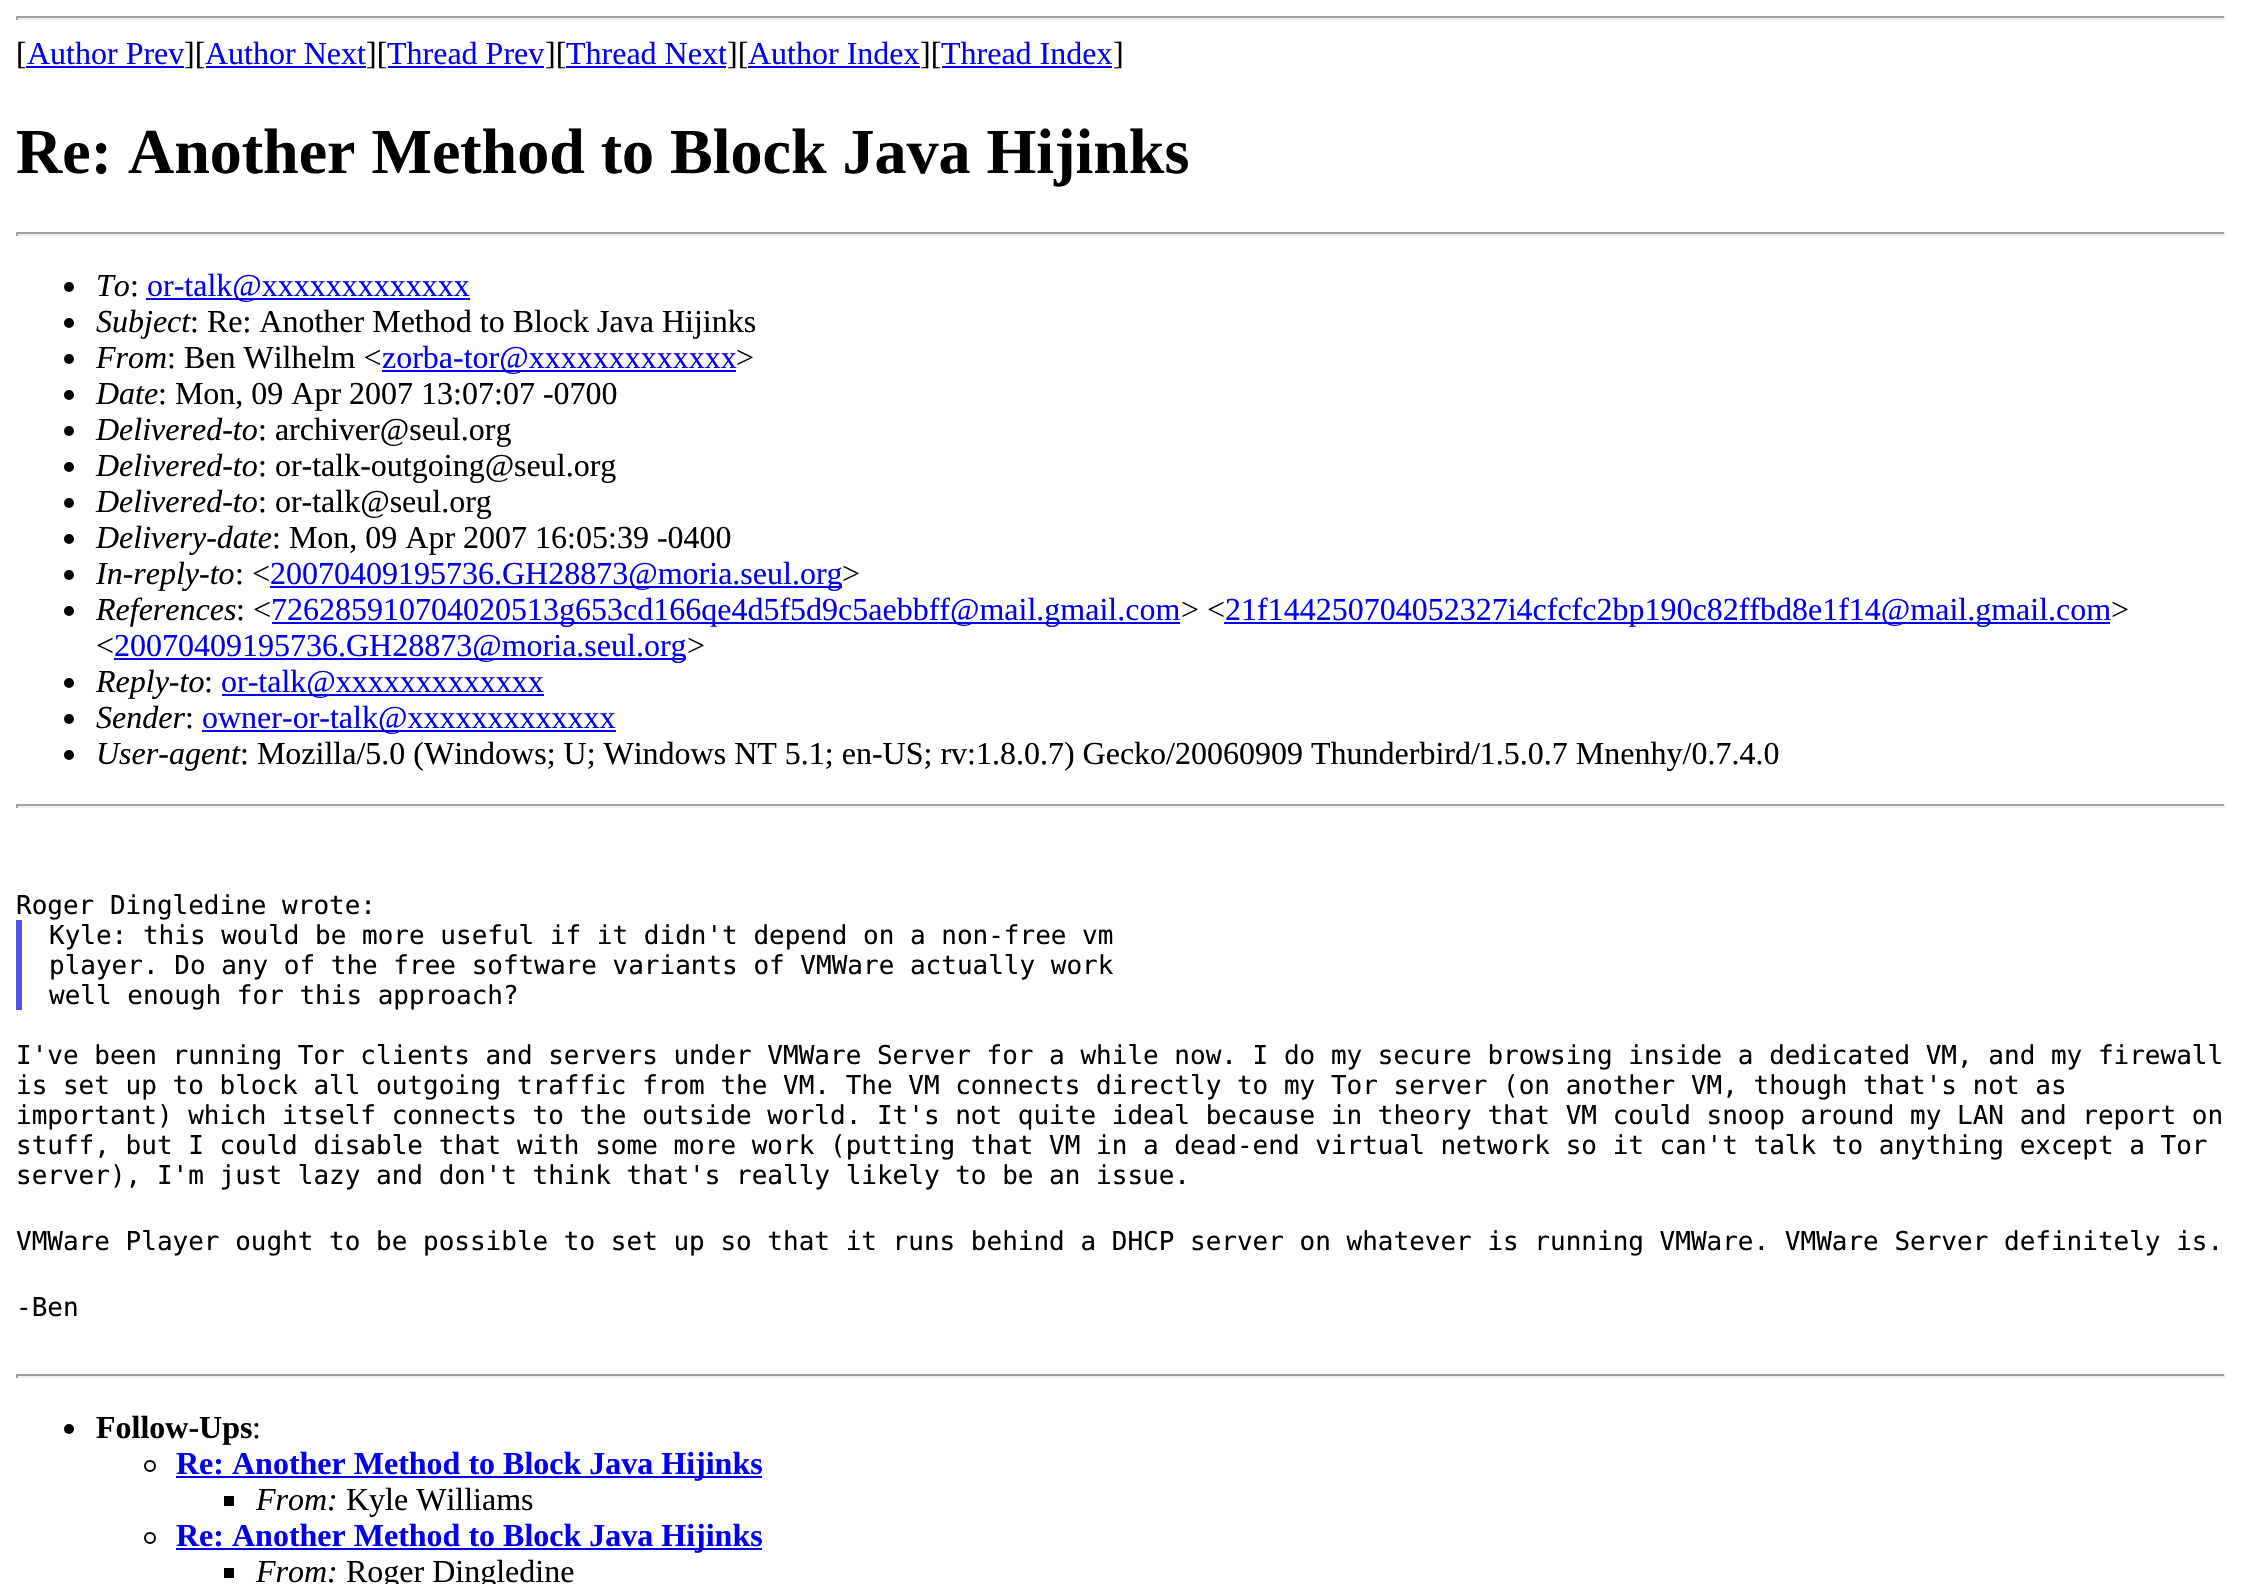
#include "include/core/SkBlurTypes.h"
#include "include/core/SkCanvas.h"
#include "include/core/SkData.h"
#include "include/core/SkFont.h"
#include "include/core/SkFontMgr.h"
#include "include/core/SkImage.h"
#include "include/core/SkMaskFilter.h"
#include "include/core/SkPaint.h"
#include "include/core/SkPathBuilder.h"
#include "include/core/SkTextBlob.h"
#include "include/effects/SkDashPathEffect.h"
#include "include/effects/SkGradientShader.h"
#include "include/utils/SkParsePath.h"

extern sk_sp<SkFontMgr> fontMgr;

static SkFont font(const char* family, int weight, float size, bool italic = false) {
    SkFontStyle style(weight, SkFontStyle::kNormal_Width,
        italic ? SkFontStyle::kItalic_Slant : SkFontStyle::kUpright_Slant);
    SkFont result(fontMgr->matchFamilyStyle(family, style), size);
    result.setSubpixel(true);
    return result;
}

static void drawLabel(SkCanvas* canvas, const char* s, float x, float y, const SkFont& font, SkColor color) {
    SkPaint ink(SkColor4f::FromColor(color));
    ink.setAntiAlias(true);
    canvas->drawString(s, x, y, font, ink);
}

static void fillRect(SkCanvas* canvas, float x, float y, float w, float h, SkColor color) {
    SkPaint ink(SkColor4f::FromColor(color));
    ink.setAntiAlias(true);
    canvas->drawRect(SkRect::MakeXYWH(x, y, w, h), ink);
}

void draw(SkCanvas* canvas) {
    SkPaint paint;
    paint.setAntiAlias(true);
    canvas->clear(0xFFFFFFFF);
    fillRect(canvas, 16, 16, 2210, 2, 0xFF9F9F9F);
    fillRect(canvas, 2224, 16, 2, 4, 0xFFEEEEEE);
    fillRect(canvas, 16, 18, 2210, 2, 0xFFEEEEEE);
    fillRect(canvas, 16, 16, 2, 4, 0xFF9F9F9F);
    SkFont font1 = font("Liberation Serif", 400, 32);
    drawLabel(canvas, "[", 16, 64, font1, 0xFF000000);
    drawLabel(canvas, "Author Prev", 27, 64, font1, 0xFF0000EE);
    fillRect(canvas, 26, 66, 158, 2, 0xFF0000EE);
    drawLabel(canvas, "][", 184, 64, font1, 0xFF000000);
    drawLabel(canvas, "Author Next", 205, 64, font1, 0xFF0000EE);
    fillRect(canvas, 206, 66, 160, 2, 0xFF0000EE);
    drawLabel(canvas, "][", 366, 64, font1, 0xFF000000);
    drawLabel(canvas, "Thread Prev", 387, 64, font1, 0xFF0000EE);
    fillRect(canvas, 388, 66, 156, 2, 0xFF0000EE);
    drawLabel(canvas, "][", 545, 64, font1, 0xFF000000);
    drawLabel(canvas, "Thread Next", 566, 64, font1, 0xFF0000EE);
    fillRect(canvas, 566, 66, 160, 2, 0xFF0000EE);
    drawLabel(canvas, "][", 727, 64, font1, 0xFF000000);
    drawLabel(canvas, "Author Index", 748, 64, font1, 0xFF0000EE);
    fillRect(canvas, 748, 66, 172, 2, 0xFF0000EE);
    drawLabel(canvas, "][", 920, 64, font1, 0xFF000000);
    drawLabel(canvas, "Thread Index", 941, 64, font1, 0xFF0000EE);
    fillRect(canvas, 942, 66, 170, 2, 0xFF0000EE);
    drawLabel(canvas, "]", 1113, 64, font1, 0xFF000000);
    SkFont font2 = font("Liberation Serif", 700, 64);
    drawLabel(canvas, "Re: Another Method to Block Java Hijinks", 16, 173, font2, 0xFF000000);
    fillRect(canvas, 16, 232, 2210, 2, 0xFF9F9F9F);
    fillRect(canvas, 2224, 232, 2, 4, 0xFFEEEEEE);
    fillRect(canvas, 16, 234, 2210, 2, 0xFFEEEEEE);
    fillRect(canvas, 16, 232, 2, 4, 0xFF9F9F9F);
    paint.setColor(0xFF000000);
    canvas->drawCircle(69, 287, 5, paint);
    SkFont font3 = font("Liberation Serif", 400, 32, true);
    drawLabel(canvas, "To", 96, 296, font3, 0xFF000000);
    drawLabel(canvas, ":", 130, 296, font1, 0xFF000000);
    fillRect(canvas, 146, 298, 324, 2, 0xFF0000EE);
    drawLabel(canvas, "or-talk@xxxxxxxxxxxxx", 147, 296, font1, 0xFF0000EE);
    canvas->drawCircle(69, 323, 5, paint);
    drawLabel(canvas, "Subject", 96, 332, font3, 0xFF000000);
    drawLabel(canvas, ": Re: Another Method to Block Java Hijinks", 190, 332, font1, 0xFF000000);
    canvas->drawCircle(69, 359, 5, paint);
    drawLabel(canvas, "From", 96, 368, font3, 0xFF000000);
    drawLabel(canvas, ": Ben Wilhelm <", 167, 368, font1, 0xFF000000);
    fillRect(canvas, 382, 370, 354, 2, 0xFF0000EE);
    drawLabel(canvas, "zorba-tor@xxxxxxxxxxxxx", 382, 368, font1, 0xFF0000EE);
    drawLabel(canvas, ">", 736, 368, font1, 0xFF000000);
    canvas->drawCircle(69, 395, 5, paint);
    drawLabel(canvas, "Date", 96, 404, font3, 0xFF000000);
    drawLabel(canvas, ": Mon, 09 Apr 2007 13:07:07 -0700", 158, 404, font1, 0xFF000000);
    canvas->drawCircle(69, 431, 5, paint);
    drawLabel(canvas, "Delivered-to", 96, 440, font3, 0xFF000000);
    drawLabel(canvas, ": archiver@seul.org", 258, 440, font1, 0xFF000000);
    canvas->drawCircle(69, 467, 5, paint);
    drawLabel(canvas, "Delivered-to", 96, 476, font3, 0xFF000000);
    drawLabel(canvas, ": or-talk-outgoing@seul.org", 258, 476, font1, 0xFF000000);
    canvas->drawCircle(69, 503, 5, paint);
    drawLabel(canvas, "Delivered-to", 96, 512, font3, 0xFF000000);
    drawLabel(canvas, ": or-talk@seul.org", 258, 512, font1, 0xFF000000);
    canvas->drawCircle(69, 539, 5, paint);
    drawLabel(canvas, "Delivery-date", 96, 548, font3, 0xFF000000);
    drawLabel(canvas, ": Mon, 09 Apr 2007 16:05:39 -0400", 272, 548, font1, 0xFF000000);
    canvas->drawCircle(69, 575, 5, paint);
    drawLabel(canvas, "In-reply-to", 96, 584, font3, 0xFF000000);
    drawLabel(canvas, ": <", 235, 584, font1, 0xFF000000);
    fillRect(canvas, 270, 586, 572, 2, 0xFF0000EE);
    drawLabel(canvas, "20070409195736.GH28873@moria.seul.org", 270, 584, font1, 0xFF0000EE);
    drawLabel(canvas, ">", 842, 584, font1, 0xFF000000);
    canvas->drawCircle(69, 611, 5, paint);
    drawLabel(canvas, "References", 96, 620, font3, 0xFF000000);
    drawLabel(canvas, ": <", 236, 620, font1, 0xFF000000);
    fillRect(canvas, 272, 622, 908, 2, 0xFF0000EE);
    drawLabel(canvas, "726285910704020513g653cd166qe4d5f5d9c5aebbff@mail.gmail.com", 271, 620, font1, 0xFF0000EE);
    drawLabel(canvas, "> <", 1181, 620, font1, 0xFF000000);
    fillRect(canvas, 1224, 622, 886, 2, 0xFF0000EE);
    drawLabel(canvas, "21f144250704052327i4cfcfc2bp190c82ffbd8e1f14@mail.gmail.com", 1225, 620, font1, 0xFF0000EE);
    drawLabel(canvas, ">", 2111, 620, font1, 0xFF000000);
    drawLabel(canvas, "<", 96, 656, font1, 0xFF000000);
    fillRect(canvas, 114, 658, 572, 2, 0xFF0000EE);
    drawLabel(canvas, "20070409195736.GH28873@moria.seul.org", 114, 656, font1, 0xFF0000EE);
    drawLabel(canvas, ">", 687, 656, font1, 0xFF000000);
    canvas->drawCircle(69, 683, 5, paint);
    drawLabel(canvas, "Reply-to", 96, 692, font3, 0xFF000000);
    drawLabel(canvas, ":", 204, 692, font1, 0xFF000000);
    fillRect(canvas, 222, 694, 322, 2, 0xFF0000EE);
    drawLabel(canvas, "or-talk@xxxxxxxxxxxxx", 221, 692, font1, 0xFF0000EE);
    canvas->drawCircle(69, 719, 5, paint);
    drawLabel(canvas, "Sender", 96, 728, font3, 0xFF000000);
    drawLabel(canvas, ":", 185, 728, font1, 0xFF000000);
    fillRect(canvas, 202, 730, 414, 2, 0xFF0000EE);
    drawLabel(canvas, "owner-or-talk@xxxxxxxxxxxxx", 202, 728, font1, 0xFF0000EE);
    canvas->drawCircle(69, 755, 5, paint);
    drawLabel(canvas, "User-agent", 96, 764, font3, 0xFF000000);
    drawLabel(canvas, ": Mozilla/5.0 (Windows; U; Windows NT 5.1; en-US; rv:1.8.0.7) Gecko/20060909 Thunderbird/1.5.0.7 Mnenhy/0.7.4.0", 240, 764, font1, 0xFF000000);
    fillRect(canvas, 16, 804, 2210, 2, 0xFF9F9F9F);
    fillRect(canvas, 2224, 804, 2, 4, 0xFFEEEEEE);
    fillRect(canvas, 16, 806, 2210, 2, 0xFFEEEEEE);
    fillRect(canvas, 16, 804, 2, 4, 0xFF9F9F9F);
    SkFont font4 = font("DejaVu Sans Mono", 400, 26);
    drawLabel(canvas, "Roger Dingledine wrote:", 16, 914, font4, 0xFF000000);
    fillRect(canvas, 16, 920, 6, 90, 0xFF5555EE);
    drawLabel(canvas, "Kyle: this would be more useful if it didn't depend on a non-free vm", 49, 944, font4, 0xFF000000);
    drawLabel(canvas, "player. Do any of the free software variants of VMWare actually work", 49, 974, font4, 0xFF000000);
    drawLabel(canvas, "well enough for this approach?", 49, 1004, font4, 0xFF000000);
    drawLabel(canvas, "I've been running Tor clients and servers under VMWare Server for a while now. I do my secure browsing inside a dedicated VM, and my firewall", 16, 1064, font4, 0xFF000000);
    drawLabel(canvas, "is set up to block all outgoing traffic from the VM. The VM connects directly to my Tor server (on another VM, though that's not as", 16, 1094, font4, 0xFF000000);
    drawLabel(canvas, "important) which itself connects to the outside world. It's not quite ideal because in theory that VM could snoop around my LAN and report on", 16, 1124, font4, 0xFF000000);
    drawLabel(canvas, "stuff, but I could disable that with some more work (putting that VM in a dead-end virtual network so it can't talk to anything except a Tor", 16, 1154, font4, 0xFF000000);
    drawLabel(canvas, "server), I'm just lazy and don't think that's really likely to be an issue.", 16, 1184, font4, 0xFF000000);
    drawLabel(canvas, "VMWare Player ought to be possible to set up so that it runs behind a DHCP server on whatever is running VMWare. VMWare Server definitely is.", 16, 1250, font4, 0xFF000000);
    drawLabel(canvas, "-Ben", 16, 1316, font4, 0xFF000000);
    fillRect(canvas, 16, 1374, 2210, 2, 0xFF9F9F9F);
    fillRect(canvas, 2224, 1374, 2, 4, 0xFFEEEEEE);
    fillRect(canvas, 16, 1376, 2210, 2, 0xFFEEEEEE);
    fillRect(canvas, 16, 1374, 2, 4, 0xFF9F9F9F);
    canvas->drawCircle(69, 1429, 5, paint);
    SkFont font5 = font("Liberation Serif", 700, 32);
    drawLabel(canvas, "Follow-Ups", 96, 1438, font5, 0xFF000000);
    drawLabel(canvas, ":", 252, 1438, font1, 0xFF000000);
    paint.setStroke(true);
    paint.setStrokeWidth(2);
    canvas->drawCircle(150, 1466, 5, paint);
    fillRect(canvas, 176, 1476, 586, 2, 0xFF0000EE);
    drawLabel(canvas, "Re: Another Method to Block Java Hijinks", 176, 1474, font5, 0xFF0000EE);
    fillRect(canvas, 224, 1496, 10, 10, 0xFF000000);
    drawLabel(canvas, "From:", 256, 1510, font3, 0xFF000000);
    drawLabel(canvas, "Kyle Williams", 346, 1510, font1, 0xFF000000);
    canvas->drawCircle(150, 1538, 5, paint);
    fillRect(canvas, 176, 1548, 586, 2, 0xFF0000EE);
    drawLabel(canvas, "Re: Another Method to Block Java Hijinks", 176, 1546, font5, 0xFF0000EE);
    fillRect(canvas, 224, 1568, 10, 10, 0xFF000000);
    drawLabel(canvas, "From:", 256, 1582, font3, 0xFF000000);
    drawLabel(canvas, "Roger Dingledine", 346, 1582, font1, 0xFF000000);
}
